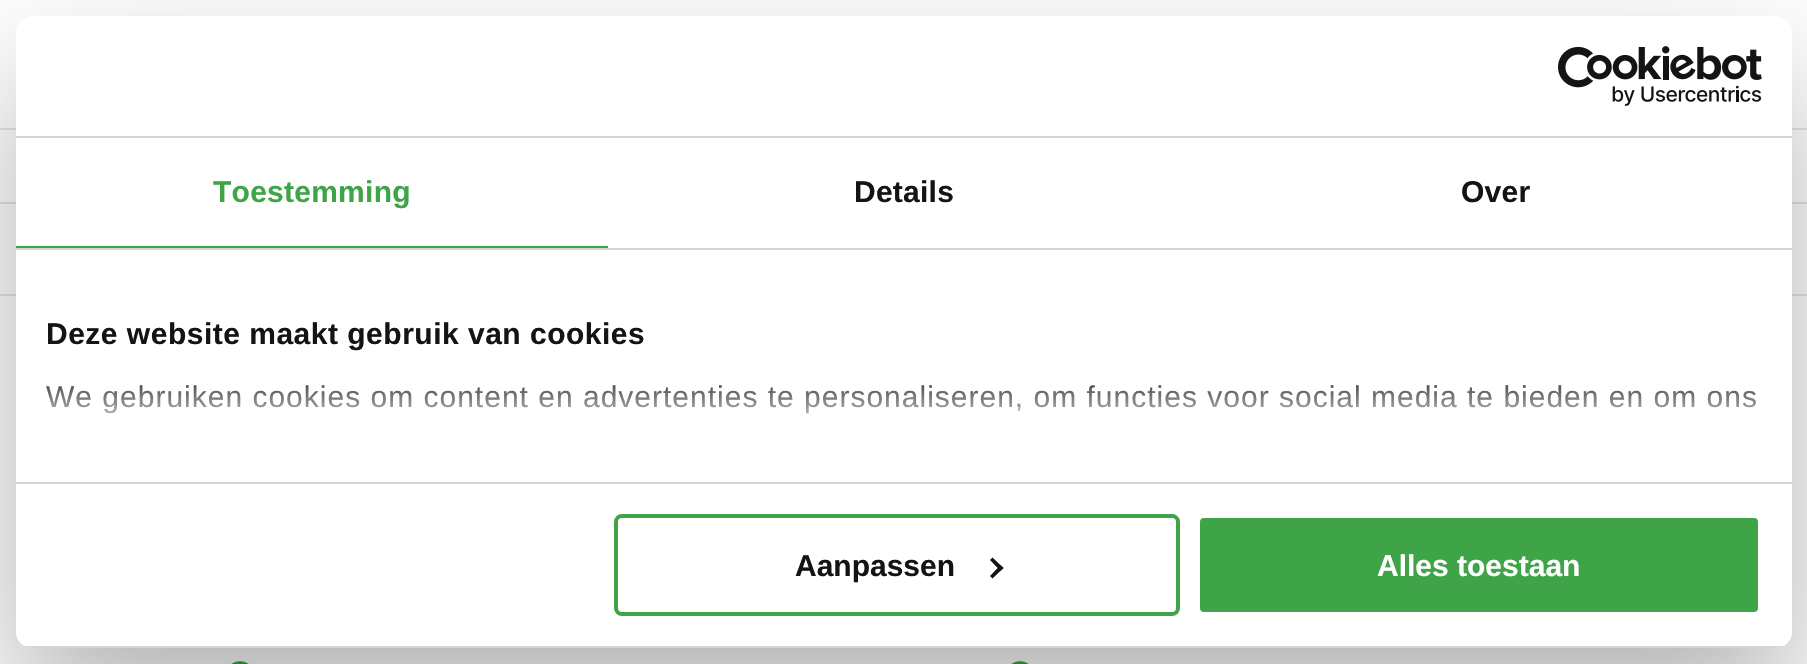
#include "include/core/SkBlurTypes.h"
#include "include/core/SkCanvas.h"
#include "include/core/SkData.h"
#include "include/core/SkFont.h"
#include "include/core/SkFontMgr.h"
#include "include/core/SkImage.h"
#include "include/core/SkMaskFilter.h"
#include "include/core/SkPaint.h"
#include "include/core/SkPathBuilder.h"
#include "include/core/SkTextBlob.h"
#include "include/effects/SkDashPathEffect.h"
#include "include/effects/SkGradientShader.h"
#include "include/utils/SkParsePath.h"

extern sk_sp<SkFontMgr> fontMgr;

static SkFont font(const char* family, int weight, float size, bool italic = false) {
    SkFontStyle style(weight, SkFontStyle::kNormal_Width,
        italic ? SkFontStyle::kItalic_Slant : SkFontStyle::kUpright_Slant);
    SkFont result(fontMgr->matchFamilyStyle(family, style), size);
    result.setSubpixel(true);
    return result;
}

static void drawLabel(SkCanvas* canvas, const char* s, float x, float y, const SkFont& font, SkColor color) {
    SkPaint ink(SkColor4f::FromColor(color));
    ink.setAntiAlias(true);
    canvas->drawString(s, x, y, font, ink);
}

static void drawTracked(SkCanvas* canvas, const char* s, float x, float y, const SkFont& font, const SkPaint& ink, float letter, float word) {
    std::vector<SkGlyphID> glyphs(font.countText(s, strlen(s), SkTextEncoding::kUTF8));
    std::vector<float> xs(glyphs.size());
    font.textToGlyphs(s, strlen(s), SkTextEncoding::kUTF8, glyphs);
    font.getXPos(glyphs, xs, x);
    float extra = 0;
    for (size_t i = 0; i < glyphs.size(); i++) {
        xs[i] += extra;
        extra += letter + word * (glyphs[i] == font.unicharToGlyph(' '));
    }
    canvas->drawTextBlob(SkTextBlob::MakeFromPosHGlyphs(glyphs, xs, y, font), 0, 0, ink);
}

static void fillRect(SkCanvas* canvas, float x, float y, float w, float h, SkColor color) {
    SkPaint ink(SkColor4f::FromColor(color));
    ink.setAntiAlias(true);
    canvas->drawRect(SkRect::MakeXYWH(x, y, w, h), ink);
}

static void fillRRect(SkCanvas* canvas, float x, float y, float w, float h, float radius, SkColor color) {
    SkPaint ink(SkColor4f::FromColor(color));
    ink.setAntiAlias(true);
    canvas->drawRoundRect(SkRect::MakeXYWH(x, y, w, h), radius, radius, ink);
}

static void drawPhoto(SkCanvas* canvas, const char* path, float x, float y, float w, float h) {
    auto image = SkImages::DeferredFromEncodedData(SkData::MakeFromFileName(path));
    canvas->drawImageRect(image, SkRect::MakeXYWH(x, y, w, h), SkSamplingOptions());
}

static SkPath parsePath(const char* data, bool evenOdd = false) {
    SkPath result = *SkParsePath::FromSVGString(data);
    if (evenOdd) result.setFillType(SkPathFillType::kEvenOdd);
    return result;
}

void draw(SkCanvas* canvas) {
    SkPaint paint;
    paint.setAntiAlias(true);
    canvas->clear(0xFFFFFFFF);
    fillRect(canvas, 0, 128, 1807, 2, 0xFFE4E4E4);
    fillRect(canvas, 0, 202, 1807, 2, 0xFFE4E4E4);
    fillRect(canvas, 0, 294, 1807, 2, 0xFFE4E4E4);
    drawPhoto(canvas, "assets/img2.png", 231, 661, 18, 3);
    drawPhoto(canvas, "assets/img2.png", 1011, 661, 18, 3);
    paint.setColor(0x4D000000);
    paint.setMaskFilter(SkMaskFilter::MakeBlur(kNormal_SkBlurStyle, 68));
    canvas->drawRoundRect(SkRect::MakeXYWH(16, 80, 1776, 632), 16, 16, paint);
    paint.setMaskFilter(nullptr);
    fillRRect(canvas, 16, 16, 1776, 632, 16, 0xFFFFFFFF);
    fillRect(canvas, 16, 136, 1776, 2, 0xFFD6D6D6);
    drawPhoto(canvas, "assets/img1.png", 1558, 46, 204, 60);
    fillRect(canvas, 16, 248, 1776, 2, 0xFFD6D6D6);
    fillRect(canvas, 16, 246, 592, 2, 0xFF3EA447);
    SkFont font1 = font("Liberation Sans", 700, 30);
    paint.setColor(0xFF3EA447);
    drawTracked(canvas, "Toestemming", 213, 202, font1, paint, 0.25f, 0);
    paint.setColor(0xFF141414);
    drawTracked(canvas, "Details", 854, 202, font1, paint, 0.25f, 0);
    drawTracked(canvas, "Over", 1461, 202, font1, paint, 0.25f, 0);
    fillRect(canvas, 16, 482, 1776, 2, 0xFFD6D6D6);
    drawTracked(canvas, "Deze website maakt gebruik van cookies", 46, 344, font1, paint, 0.5f, 0);
    SkFont font2 = font("Liberation Sans", 400, 30);
    drawTracked(canvas, "We gebruiken cookies om content en advertenties te personaliseren, om functies voor social media te bieden en om ons", 46, 407, font2, paint, 1, 0);
    {
        const SkColor colors[] = {0xFFFFFFFF, 0xCCFFFFFF, 0x00FFFFFF};
        const float stops[] = {0, 0.5f, 1};
        const SkPoint ends[] = {{891, 482}, {891, 366}};
        paint.setShader(SkGradientShader::MakeLinear(ends, colors, stops, 3, SkTileMode::kClamp));
        paint.setAlpha(255);
    }
    canvas->drawRect(SkRect::MakeXYWH(46, 385, 1710, 29), paint);
    canvas->save();
    canvas->clipPath(parsePath("M32 16H1776C1785 16 1792 23 1792 32V632C1792 641 1785 648 1776 648H32C23 648 16 641 16 632V32C16 23 23 16 32 16Z"), true);
    fillRect(canvas, 16, 646, 1776, 2, 0xFFD6D6D6);
    canvas->restore();
    paint.setStroke(true);
    paint.setStrokeWidth(4);
    paint.setShader(nullptr);
    paint.setColor(0xFF3EA447);
    canvas->drawRoundRect(SkRect::MakeXYWH(616, 516, 562, 98), 6, 6, paint);
    drawLabel(canvas, "Aanpassen", 795, 576, font1, 0xFF141414);
    paint.setStroke(false);
    paint.setColor(0xFF141414);
    canvas->drawPath(parsePath("M992.5 557.5L1003.5 568L1000.5 571L990 560Z"), paint);
    canvas->drawPath(parsePath("M1000.5 565L1003.5 568L992.5 578.5L990 576Z"), paint);
    paint.setColor(0xFF3EA447);
    canvas->drawRoundRect(SkRect::MakeXYWH(1198, 516, 562, 98), 6, 6, paint);
    paint.setStroke(true);
    paint.setColor(0xFFFFFFFF);
    canvas->drawRoundRect(SkRect::MakeXYWH(1198, 516, 562, 98), 6, 6, paint);
    drawLabel(canvas, "Alles toestaan", 1377, 576, font1, 0xFFFFFFFF);
}
